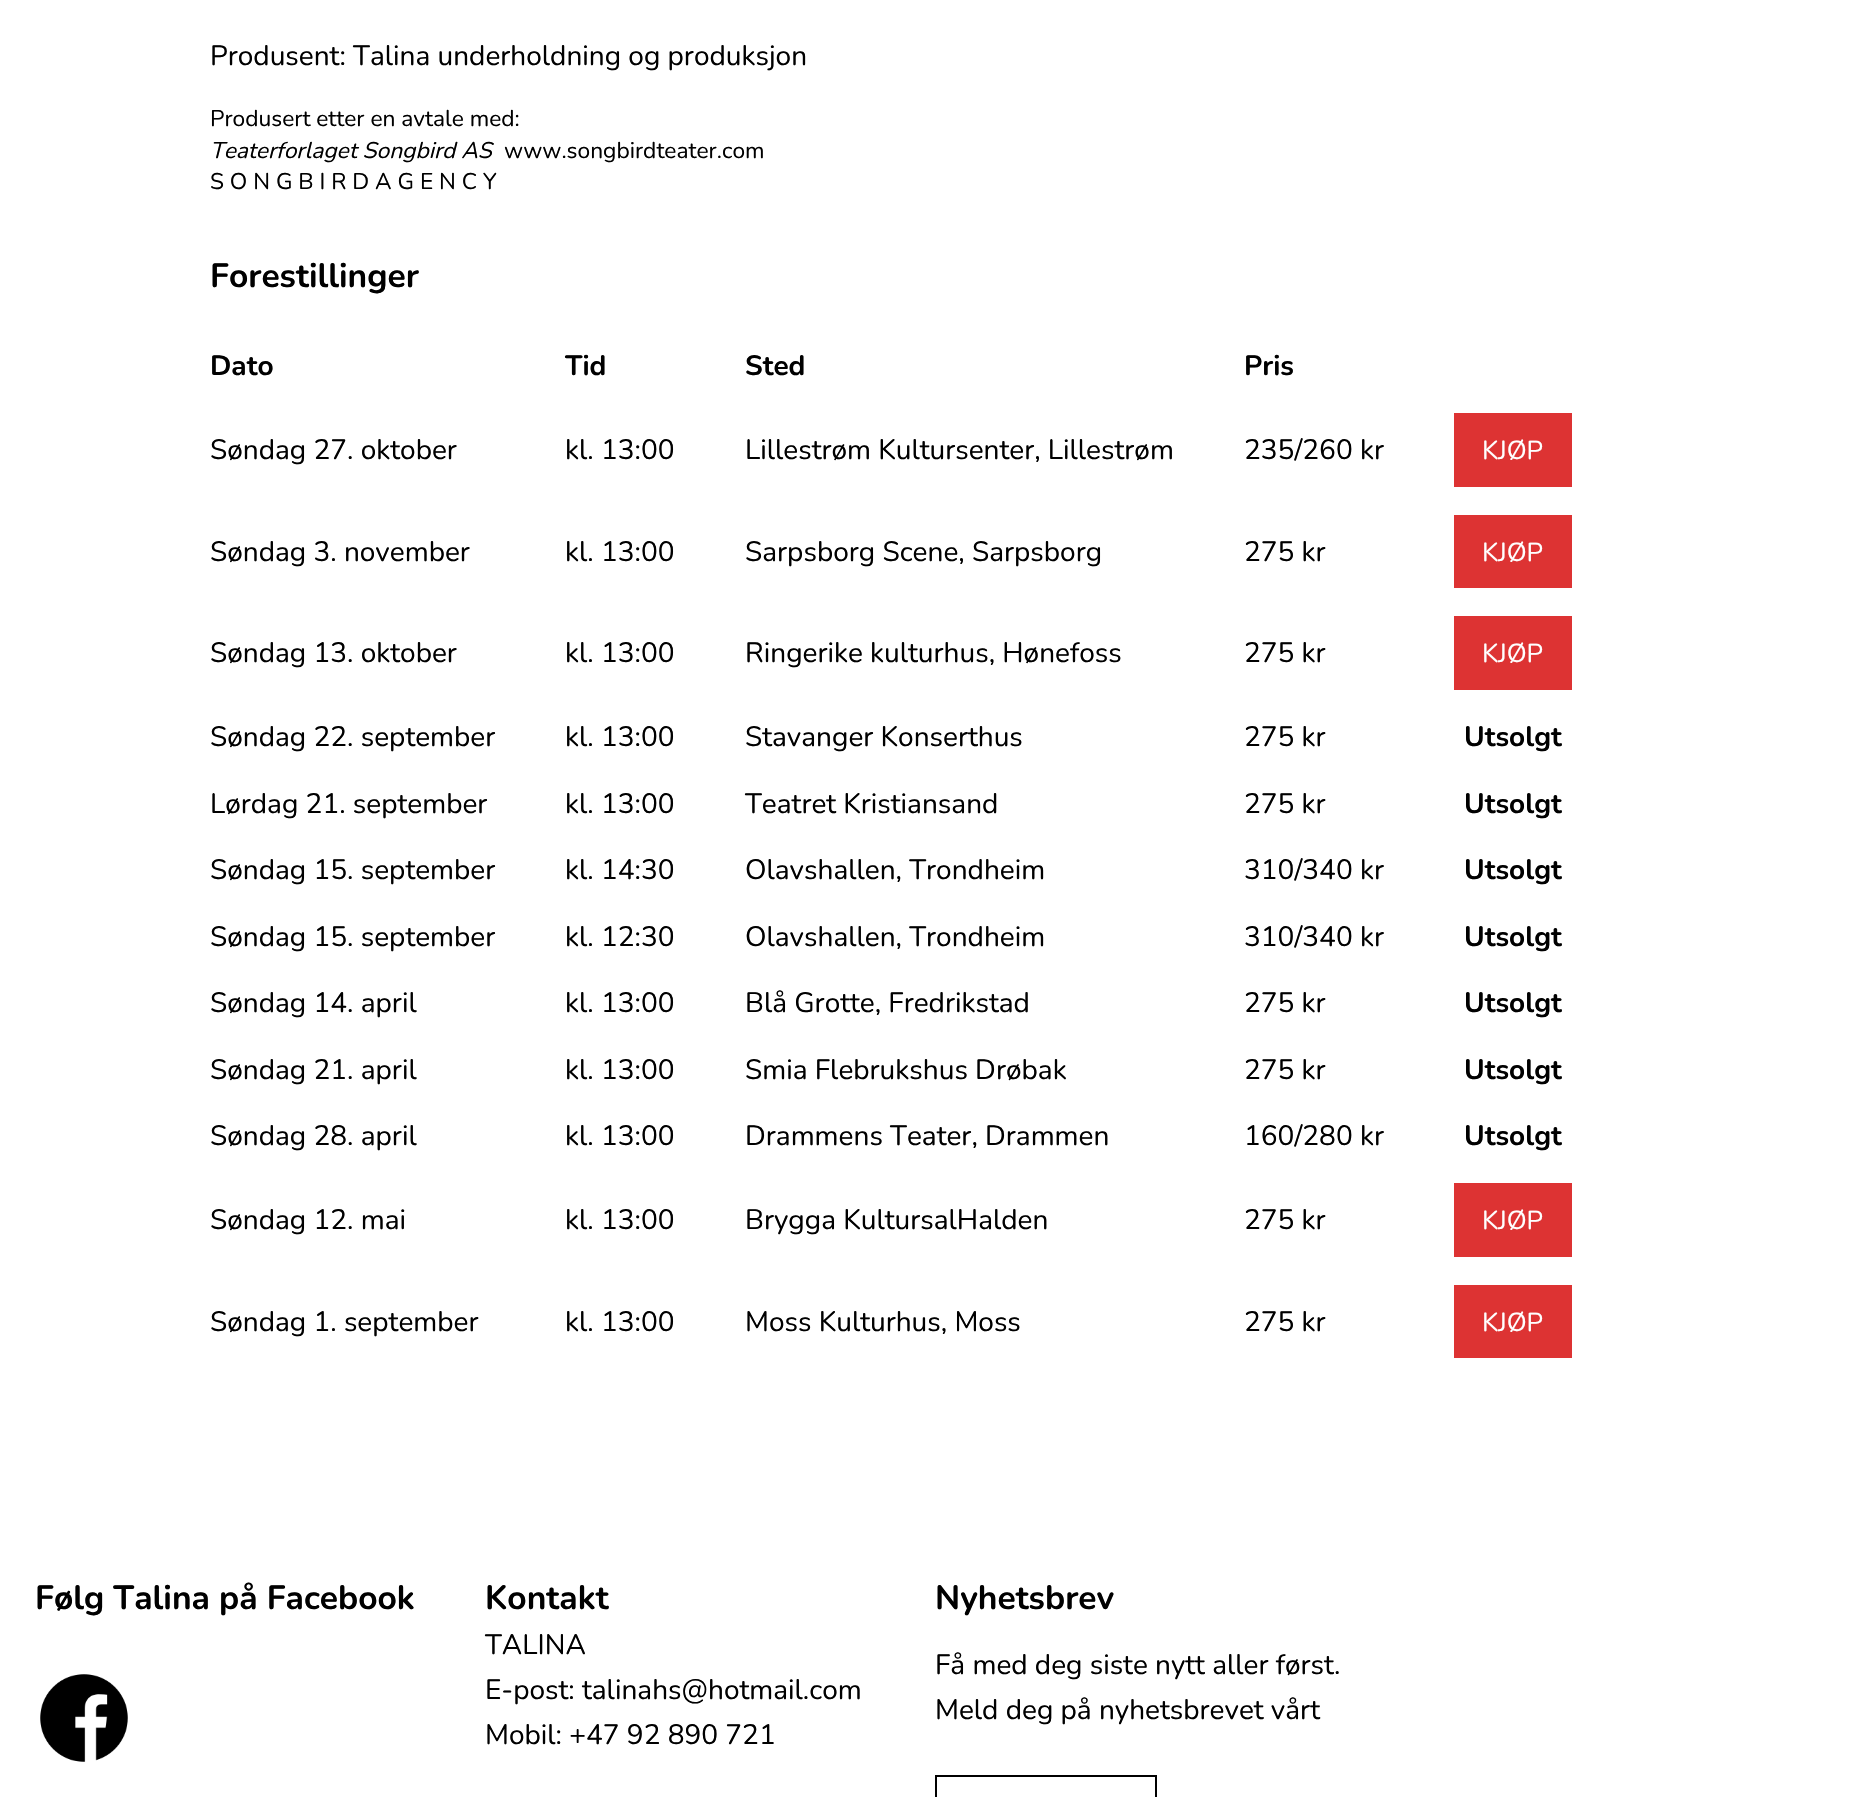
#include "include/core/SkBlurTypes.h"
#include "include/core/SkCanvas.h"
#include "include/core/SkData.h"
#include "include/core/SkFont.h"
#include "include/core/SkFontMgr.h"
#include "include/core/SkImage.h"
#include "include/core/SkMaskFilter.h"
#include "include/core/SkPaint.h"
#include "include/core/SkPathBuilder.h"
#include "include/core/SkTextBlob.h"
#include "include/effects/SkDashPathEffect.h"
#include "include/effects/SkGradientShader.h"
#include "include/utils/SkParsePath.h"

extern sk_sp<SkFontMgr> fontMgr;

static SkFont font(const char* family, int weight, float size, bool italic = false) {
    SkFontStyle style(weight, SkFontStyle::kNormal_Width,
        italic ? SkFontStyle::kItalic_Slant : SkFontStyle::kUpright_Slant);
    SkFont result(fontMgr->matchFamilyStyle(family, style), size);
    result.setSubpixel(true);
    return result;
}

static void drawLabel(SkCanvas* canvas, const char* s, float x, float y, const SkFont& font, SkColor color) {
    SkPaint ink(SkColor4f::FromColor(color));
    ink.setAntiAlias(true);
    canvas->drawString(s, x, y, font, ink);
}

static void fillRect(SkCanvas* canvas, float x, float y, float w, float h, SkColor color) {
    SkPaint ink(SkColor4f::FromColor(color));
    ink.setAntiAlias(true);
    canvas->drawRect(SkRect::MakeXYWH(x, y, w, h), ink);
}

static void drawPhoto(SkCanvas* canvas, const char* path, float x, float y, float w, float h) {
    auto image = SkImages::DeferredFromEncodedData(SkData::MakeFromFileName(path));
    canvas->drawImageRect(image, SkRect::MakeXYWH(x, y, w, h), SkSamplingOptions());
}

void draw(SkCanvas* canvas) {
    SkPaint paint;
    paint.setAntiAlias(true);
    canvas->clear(0xFFFFFFFF);
    SkFont font1 = font("Nunito", 400, 28);
    drawLabel(canvas, "Produsent: Talina underholdning og produksjon", 210, 65, font1, 0xFF000000);
    SkFont font2 = font("Nunito", 400, 22.75f);
    drawLabel(canvas, "Produsert etter en avtale med:", 210, 126, font2, 0xFF000000);
    SkFont font3 = font("Nunito", 400, 22.75f, true);
    drawLabel(canvas, "Teaterforlaget Songbird AS", 210, 158, font3, 0xFF000000);
    drawLabel(canvas, "www.songbirdteater.com", 504, 158, font2, 0xFF000000);
    drawLabel(canvas, "S O N G B I R D A G E N C Y", 210, 189, font2, 0xFF000000);
    SkFont font4 = font("Nunito", 700, 33.6f);
    drawLabel(canvas, "Forestillinger", 210, 287, font4, 0xFF000000);
    SkFont font5 = font("Nunito", 700, 28);
    drawLabel(canvas, "Dato", 210, 375, font5, 0xFF000000);
    drawLabel(canvas, "Tid", 565, 375, font5, 0xFF000000);
    drawLabel(canvas, "Sted", 745, 375, font5, 0xFF000000);
    drawLabel(canvas, "Pris", 1244, 375, font5, 0xFF000000);
    drawLabel(canvas, "Søndag 27. oktober", 210, 459, font1, 0xFF000000);
    drawLabel(canvas, "kl. 13:00", 565, 459, font1, 0xFF000000);
    drawLabel(canvas, "Lillestrøm Kultursenter, Lillestrøm", 745, 459, font1, 0xFF000000);
    drawLabel(canvas, "235/260 kr", 1244, 459, font1, 0xFF000000);
    fillRect(canvas, 1454, 413, 118, 74, 0xFFDD3333);
    SkFont font6 = font("Nunito", 400, 26);
    drawLabel(canvas, "KJØP", 1482, 459, font6, 0xFFFFFFFF);
    drawLabel(canvas, "Søndag 3. november", 210, 561, font1, 0xFF000000);
    drawLabel(canvas, "kl. 13:00", 565, 561, font1, 0xFF000000);
    drawLabel(canvas, "Sarpsborg Scene, Sarpsborg", 745, 561, font1, 0xFF000000);
    drawLabel(canvas, "275 kr", 1244, 561, font1, 0xFF000000);
    fillRect(canvas, 1454, 515, 118, 73, 0xFFDD3333);
    drawLabel(canvas, "KJØP", 1482, 561, font6, 0xFFFFFFFF);
    drawLabel(canvas, "Søndag 13. oktober", 210, 662, font1, 0xFF000000);
    drawLabel(canvas, "kl. 13:00", 565, 662, font1, 0xFF000000);
    drawLabel(canvas, "Ringerike kulturhus, Hønefoss", 745, 662, font1, 0xFF000000);
    drawLabel(canvas, "275 kr", 1244, 662, font1, 0xFF000000);
    fillRect(canvas, 1454, 616, 118, 74, 0xFFDD3333);
    drawLabel(canvas, "KJØP", 1482, 662, font6, 0xFFFFFFFF);
    drawLabel(canvas, "Søndag 22. september", 210, 746, font1, 0xFF000000);
    drawLabel(canvas, "kl. 13:00", 565, 746, font1, 0xFF000000);
    drawLabel(canvas, "Stavanger Konserthus", 745, 746, font1, 0xFF000000);
    drawLabel(canvas, "275 kr", 1244, 746, font1, 0xFF000000);
    drawLabel(canvas, "Utsolgt", 1464, 746, font5, 0xFF000000);
    drawLabel(canvas, "Lørdag 21. september", 210, 813, font1, 0xFF000000);
    drawLabel(canvas, "kl. 13:00", 565, 813, font1, 0xFF000000);
    drawLabel(canvas, "Teatret Kristiansand", 745, 813, font1, 0xFF000000);
    drawLabel(canvas, "275 kr", 1244, 813, font1, 0xFF000000);
    drawLabel(canvas, "Utsolgt", 1464, 813, font5, 0xFF000000);
    drawLabel(canvas, "Søndag 15. september", 210, 879, font1, 0xFF000000);
    drawLabel(canvas, "kl. 14:30", 565, 879, font1, 0xFF000000);
    drawLabel(canvas, "Olavshallen, Trondheim", 745, 879, font1, 0xFF000000);
    drawLabel(canvas, "310/340 kr", 1244, 879, font1, 0xFF000000);
    drawLabel(canvas, "Utsolgt", 1464, 879, font5, 0xFF000000);
    drawLabel(canvas, "Søndag 15. september", 210, 946, font1, 0xFF000000);
    drawLabel(canvas, "kl. 12:30", 565, 946, font1, 0xFF000000);
    drawLabel(canvas, "Olavshallen, Trondheim", 745, 946, font1, 0xFF000000);
    drawLabel(canvas, "310/340 kr", 1244, 946, font1, 0xFF000000);
    drawLabel(canvas, "Utsolgt", 1464, 946, font5, 0xFF000000);
    drawLabel(canvas, "Søndag 14. april", 210, 1012, font1, 0xFF000000);
    drawLabel(canvas, "kl. 13:00", 565, 1012, font1, 0xFF000000);
    drawLabel(canvas, "Blå Grotte, Fredrikstad", 745, 1012, font1, 0xFF000000);
    drawLabel(canvas, "275 kr", 1244, 1012, font1, 0xFF000000);
    drawLabel(canvas, "Utsolgt", 1464, 1012, font5, 0xFF000000);
    drawLabel(canvas, "Søndag 21. april", 210, 1079, font1, 0xFF000000);
    drawLabel(canvas, "kl. 13:00", 565, 1079, font1, 0xFF000000);
    drawLabel(canvas, "Smia Flebrukshus Drøbak", 745, 1079, font1, 0xFF000000);
    drawLabel(canvas, "275 kr", 1244, 1079, font1, 0xFF000000);
    drawLabel(canvas, "Utsolgt", 1464, 1079, font5, 0xFF000000);
    drawLabel(canvas, "Søndag 28. april", 210, 1145, font1, 0xFF000000);
    drawLabel(canvas, "kl. 13:00", 565, 1145, font1, 0xFF000000);
    drawLabel(canvas, "Drammens Teater, Drammen", 745, 1145, font1, 0xFF000000);
    drawLabel(canvas, "160/280 kr", 1244, 1145, font1, 0xFF000000);
    drawLabel(canvas, "Utsolgt", 1464, 1145, font5, 0xFF000000);
    drawLabel(canvas, "Søndag 12. mai", 210, 1229, font1, 0xFF000000);
    drawLabel(canvas, "kl. 13:00", 565, 1229, font1, 0xFF000000);
    drawLabel(canvas, "Brygga KultursalHalden", 745, 1229, font1, 0xFF000000);
    drawLabel(canvas, "275 kr", 1244, 1229, font1, 0xFF000000);
    fillRect(canvas, 1454, 1183, 118, 74, 0xFFDD3333);
    drawLabel(canvas, "KJØP", 1482, 1229, font6, 0xFFFFFFFF);
    drawLabel(canvas, "Søndag 1. september", 210, 1331, font1, 0xFF000000);
    drawLabel(canvas, "kl. 13:00", 565, 1331, font1, 0xFF000000);
    drawLabel(canvas, "Moss Kulturhus, Moss", 745, 1331, font1, 0xFF000000);
    drawLabel(canvas, "275 kr", 1244, 1331, font1, 0xFF000000);
    fillRect(canvas, 1454, 1285, 118, 73, 0xFFDD3333);
    drawLabel(canvas, "KJØP", 1482, 1331, font6, 0xFFFFFFFF);
    drawLabel(canvas, "Følg Talina på Facebook", 35, 1609, font4, 0xFF000000);
    drawPhoto(canvas, "assets/img1.png", 40, 1674, 88, 88);
    drawLabel(canvas, "Kontakt", 485, 1609, font4, 0xFF000000);
    drawLabel(canvas, "TALINA", 485, 1654, font1, 0xFF000000);
    drawLabel(canvas, "E-post: talinahs@hotmail.com", 485, 1699, font1, 0xFF000000);
    drawLabel(canvas, "Mobil: +47 92 890 721", 485, 1744, font1, 0xFF000000);
    drawLabel(canvas, "Nyhetsbrev", 935, 1609, font4, 0xFF000000);
    drawLabel(canvas, "Få med deg siste nytt aller først.", 935, 1674, font1, 0xFF000000);
    drawLabel(canvas, "Meld deg på nyhetsbrevet vårt", 935, 1719, font1, 0xFF000000);
    paint.setStroke(true);
    paint.setStrokeWidth(2);
    paint.setColor(0xFF000000);
    canvas->drawRect(SkRect::MakeXYWH(936, 1776, 220, 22), paint);
}
